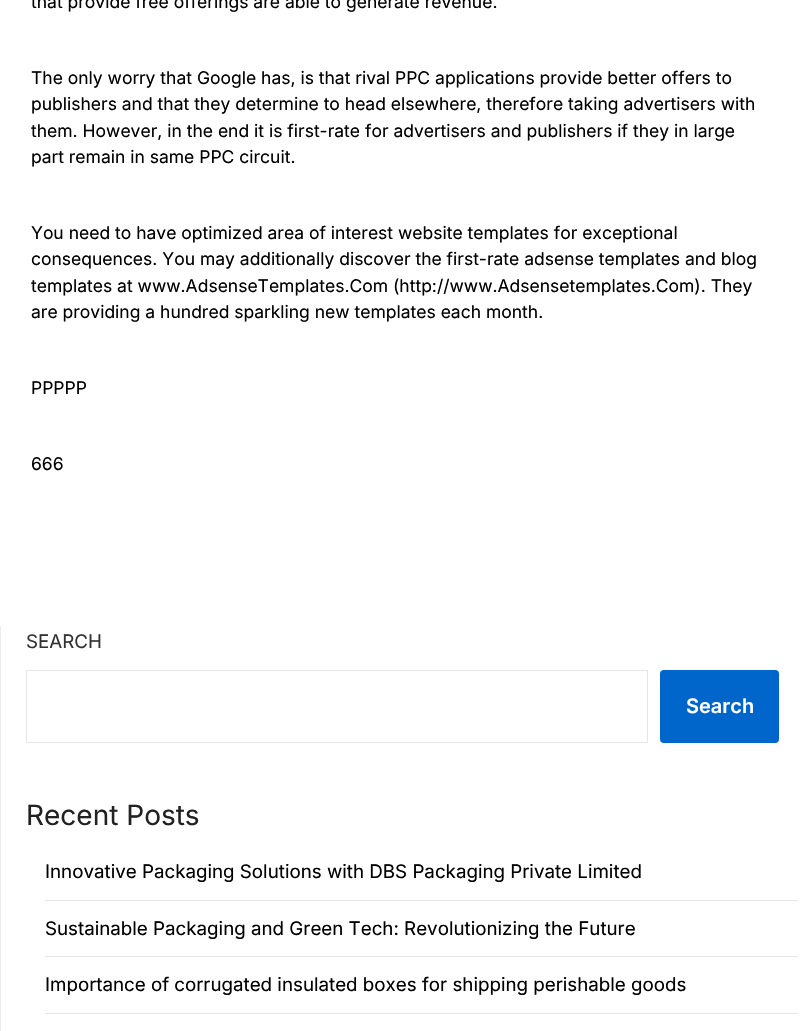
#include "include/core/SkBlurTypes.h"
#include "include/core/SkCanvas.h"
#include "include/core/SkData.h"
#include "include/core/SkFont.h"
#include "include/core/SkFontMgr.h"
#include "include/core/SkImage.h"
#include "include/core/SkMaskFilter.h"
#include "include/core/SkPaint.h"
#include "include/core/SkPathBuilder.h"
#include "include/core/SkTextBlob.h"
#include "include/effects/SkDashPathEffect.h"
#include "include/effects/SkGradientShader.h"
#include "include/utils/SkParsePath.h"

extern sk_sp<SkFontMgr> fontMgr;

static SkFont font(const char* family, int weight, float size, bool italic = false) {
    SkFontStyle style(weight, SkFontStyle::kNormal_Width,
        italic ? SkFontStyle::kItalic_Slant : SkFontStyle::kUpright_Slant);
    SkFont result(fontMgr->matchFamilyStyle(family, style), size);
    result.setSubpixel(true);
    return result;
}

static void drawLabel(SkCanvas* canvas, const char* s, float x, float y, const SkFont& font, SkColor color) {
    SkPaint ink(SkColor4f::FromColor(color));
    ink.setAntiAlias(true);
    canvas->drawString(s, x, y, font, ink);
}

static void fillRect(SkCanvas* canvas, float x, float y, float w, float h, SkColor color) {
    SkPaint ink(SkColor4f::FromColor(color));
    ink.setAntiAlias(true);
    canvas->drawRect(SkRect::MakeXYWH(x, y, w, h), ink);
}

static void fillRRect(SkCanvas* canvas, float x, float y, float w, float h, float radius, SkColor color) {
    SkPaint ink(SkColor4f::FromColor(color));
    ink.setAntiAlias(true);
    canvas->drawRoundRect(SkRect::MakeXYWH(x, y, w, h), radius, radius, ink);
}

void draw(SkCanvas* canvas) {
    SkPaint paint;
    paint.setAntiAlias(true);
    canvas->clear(0xFFFFFFFF);
    SkFont font1 = font("Inter", 400, 17.5f);
    drawLabel(canvas, "that provide free offerings are able to generate revenue.", 31, 8, font1, 0xFF000000);
    drawLabel(canvas, "The only worry that Google has, is that rival PPC applications provide better offers to", 31, 84, font1, 0xFF000000);
    drawLabel(canvas, "publishers and that they determine to head elsewhere, therefore taking advertisers with", 31, 110, font1, 0xFF000000);
    drawLabel(canvas, "them. However, in the end it is first-rate for advertisers and publishers if they in large", 31, 137, font1, 0xFF000000);
    drawLabel(canvas, "part remain in same PPC circuit.", 31, 163, font1, 0xFF000000);
    drawLabel(canvas, "You need to have optimized area of interest website templates for exceptional", 31, 239, font1, 0xFF000000);
    drawLabel(canvas, "consequences. You may additionally discover the first-rate adsense templates and blog", 31, 265, font1, 0xFF000000);
    drawLabel(canvas, "templates at www.AdsenseTemplates.Com (http://www.Adsensetemplates.Com). They", 31, 292, font1, 0xFF000000);
    drawLabel(canvas, "are providing a hundred sparkling new templates each month.", 31, 318, font1, 0xFF000000);
    drawLabel(canvas, "PPPPP", 31, 394, font1, 0xFF000000);
    drawLabel(canvas, "666", 31, 470, font1, 0xFF000000);
    fillRect(canvas, 0, 626, 1, 405, 0xFFECECEC);
    SkFont font2 = font("Inter", 400, 18.75f);
    drawLabel(canvas, "SEARCH", 26, 648, font2, 0xFF333333);
    paint.setStroke(true);
    paint.setStrokeWidth(1);
    paint.setColor(0xFFE5E6E9);
    canvas->drawRect(SkRect::MakeXYWH(26.5f, 670.5f, 621, 72), paint);
    fillRRect(canvas, 660, 670, 119, 73, 4, 0xFF0066CC);
    SkFont font3 = font("Inter", 600, 20);
    drawLabel(canvas, "Search", 686, 713, font3, 0xFFFFFFFF);
    SkFont font4 = font("Inter", 400, 28);
    drawLabel(canvas, "Recent Posts", 26, 825, font4, 0xFF222222);
    fillRect(canvas, 45, 900, 753, 1, 0xFFE6E6E6);
    drawLabel(canvas, "Innovative Packaging Solutions with DBS Packaging Private Limited", 45, 878, font2, 0xFF000000);
    fillRect(canvas, 45, 956, 753, 1, 0xFFE6E6E6);
    drawLabel(canvas, "Sustainable Packaging and Green Tech: Revolutionizing the Future", 45, 935, font2, 0xFF000000);
    fillRect(canvas, 45, 1013, 753, 1, 0xFFE6E6E6);
    drawLabel(canvas, "Importance of corrugated insulated boxes for shipping perishable goods", 45, 991, font2, 0xFF000000);
}
